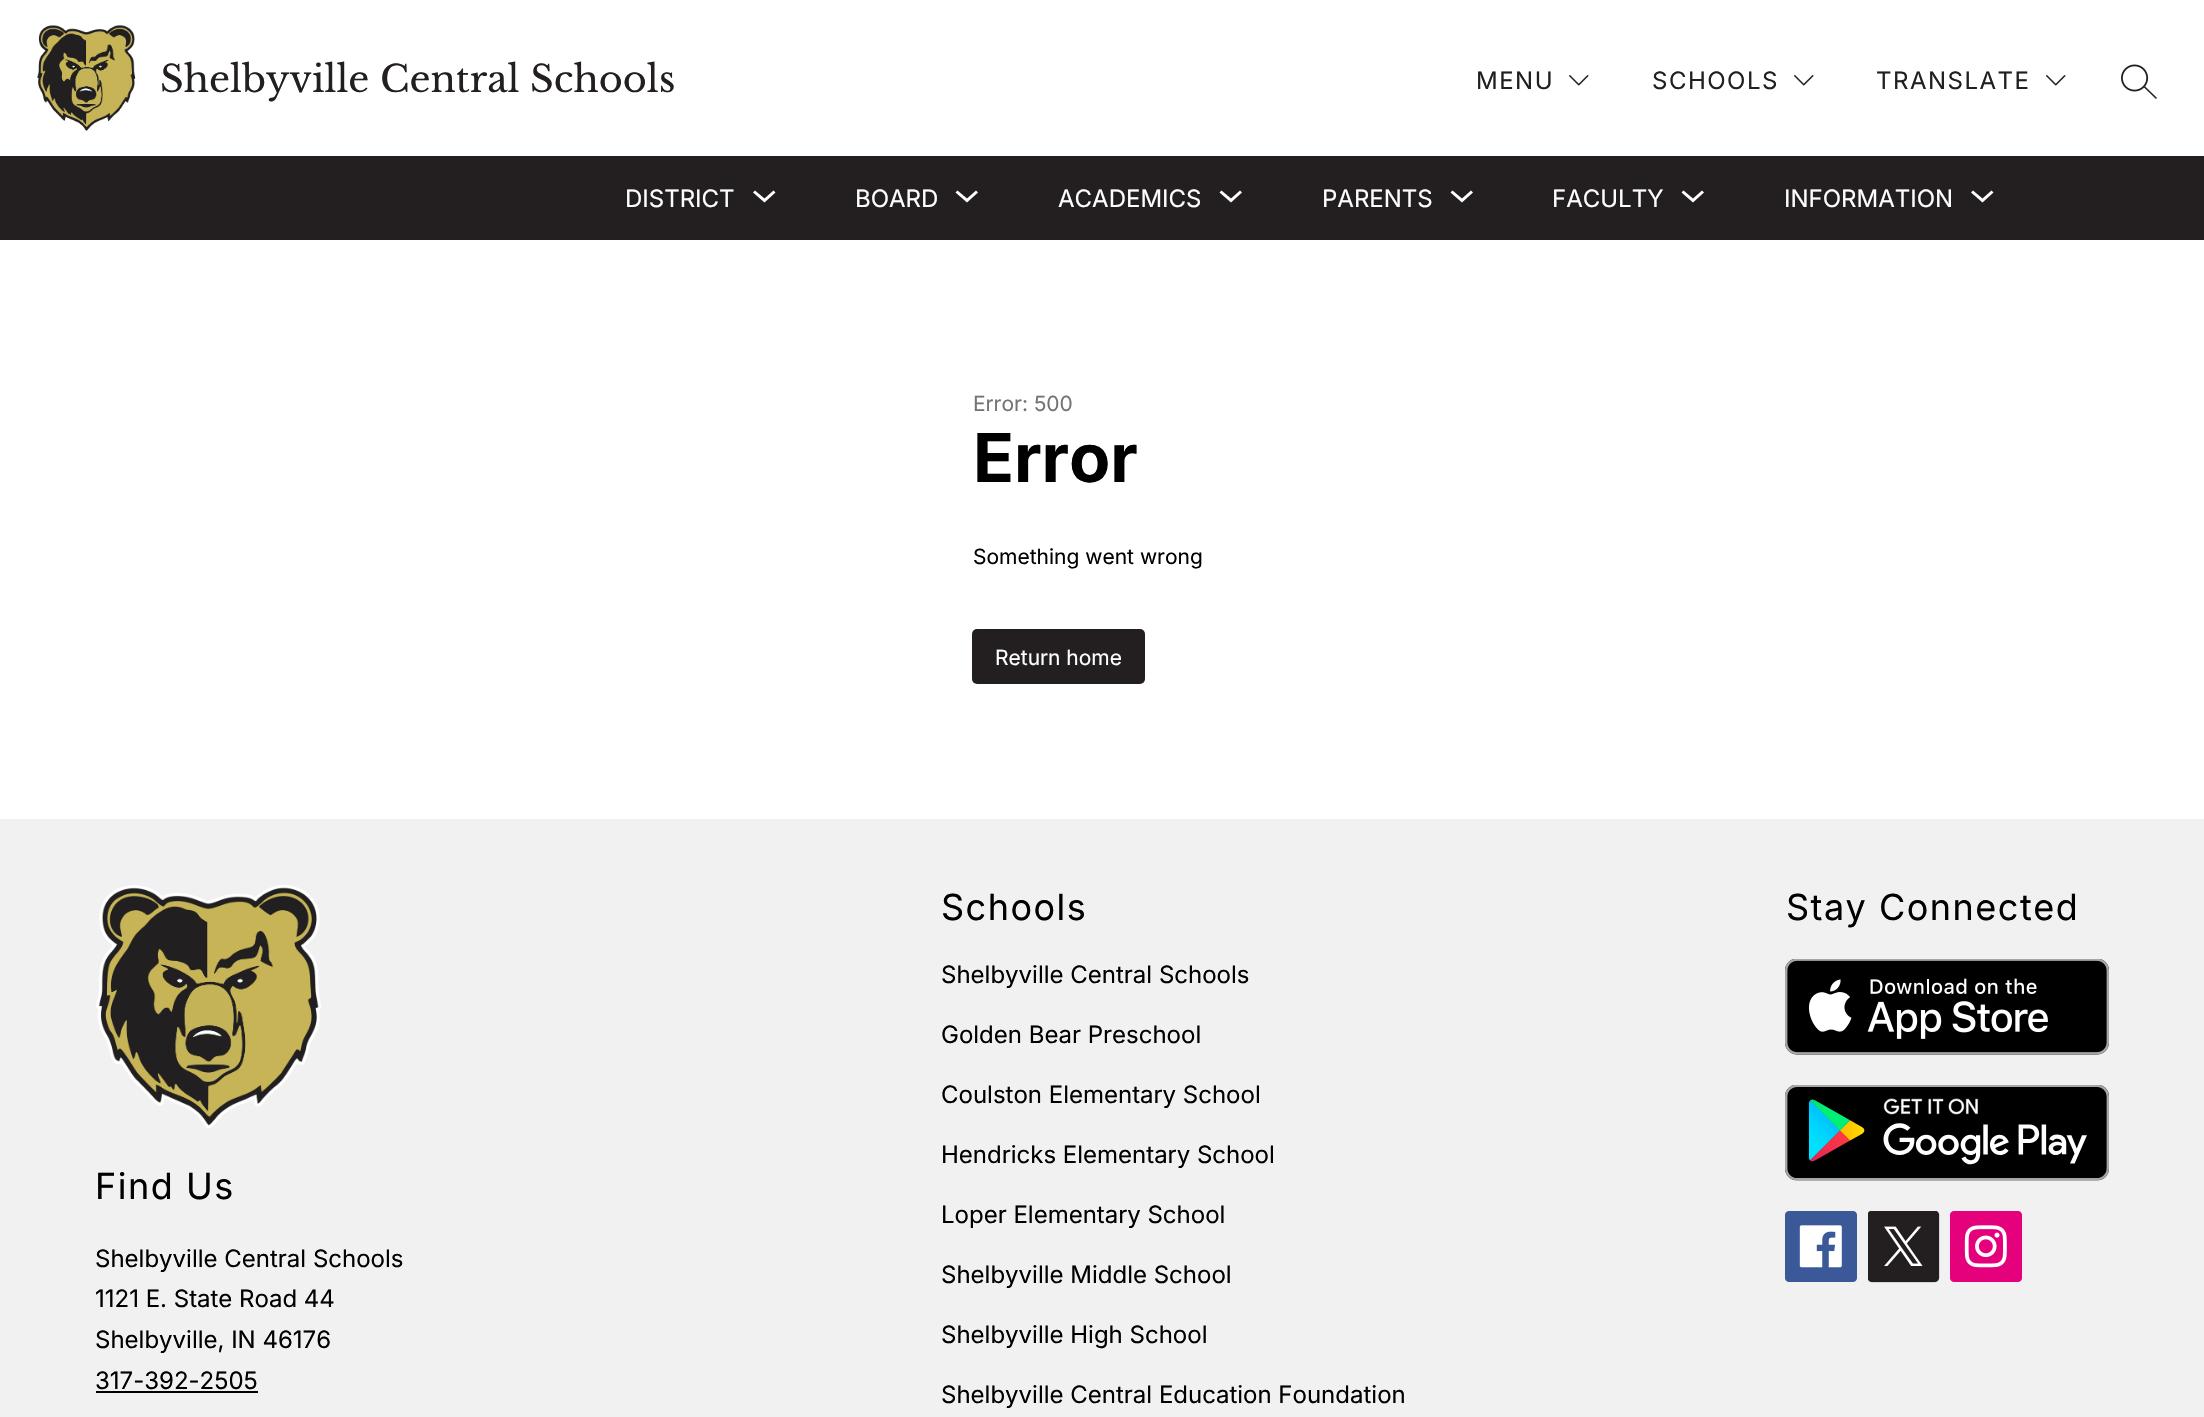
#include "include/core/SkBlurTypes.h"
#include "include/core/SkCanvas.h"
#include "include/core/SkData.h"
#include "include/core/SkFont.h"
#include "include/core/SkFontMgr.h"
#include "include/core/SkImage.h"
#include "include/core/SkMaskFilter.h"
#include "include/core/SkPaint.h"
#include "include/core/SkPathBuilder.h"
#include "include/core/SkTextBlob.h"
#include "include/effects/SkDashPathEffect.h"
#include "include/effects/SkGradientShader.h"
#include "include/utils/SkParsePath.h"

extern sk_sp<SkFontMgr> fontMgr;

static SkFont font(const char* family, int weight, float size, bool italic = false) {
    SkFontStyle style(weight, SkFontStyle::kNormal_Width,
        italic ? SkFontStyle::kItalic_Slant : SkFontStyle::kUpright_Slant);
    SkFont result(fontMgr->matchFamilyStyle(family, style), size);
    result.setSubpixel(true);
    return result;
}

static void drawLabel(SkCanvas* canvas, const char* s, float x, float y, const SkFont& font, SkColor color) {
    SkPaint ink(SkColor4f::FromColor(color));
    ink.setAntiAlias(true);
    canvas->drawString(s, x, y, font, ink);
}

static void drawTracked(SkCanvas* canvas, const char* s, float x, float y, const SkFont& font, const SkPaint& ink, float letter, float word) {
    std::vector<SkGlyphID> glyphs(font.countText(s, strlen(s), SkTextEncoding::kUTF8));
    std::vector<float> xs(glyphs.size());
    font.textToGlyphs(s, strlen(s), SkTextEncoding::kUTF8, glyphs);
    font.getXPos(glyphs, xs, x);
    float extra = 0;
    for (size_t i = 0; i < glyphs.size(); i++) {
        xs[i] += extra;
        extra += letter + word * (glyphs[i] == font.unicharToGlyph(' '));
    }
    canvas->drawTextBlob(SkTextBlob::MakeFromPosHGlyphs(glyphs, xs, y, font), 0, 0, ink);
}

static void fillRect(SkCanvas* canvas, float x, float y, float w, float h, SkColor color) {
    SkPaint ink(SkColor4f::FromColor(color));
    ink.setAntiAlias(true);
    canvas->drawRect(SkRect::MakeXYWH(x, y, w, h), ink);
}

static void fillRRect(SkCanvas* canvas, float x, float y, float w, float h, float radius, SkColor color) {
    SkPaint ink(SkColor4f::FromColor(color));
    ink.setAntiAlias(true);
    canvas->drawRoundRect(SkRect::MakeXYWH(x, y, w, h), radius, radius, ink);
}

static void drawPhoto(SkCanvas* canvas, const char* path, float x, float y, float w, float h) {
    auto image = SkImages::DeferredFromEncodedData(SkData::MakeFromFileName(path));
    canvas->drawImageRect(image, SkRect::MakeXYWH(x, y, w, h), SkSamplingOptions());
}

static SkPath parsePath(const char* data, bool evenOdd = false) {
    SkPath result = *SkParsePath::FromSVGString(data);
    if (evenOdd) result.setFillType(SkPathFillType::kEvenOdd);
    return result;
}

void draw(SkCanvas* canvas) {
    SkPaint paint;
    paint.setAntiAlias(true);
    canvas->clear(0xFFFFFFFF);
    drawPhoto(canvas, "assets/img1.png", 37, 25, 99, 106);
    SkFont font1 = font("Libre Baskerville", 400, 36.75f);
    drawLabel(canvas, "Shelbyville Central Schools", 160, 92, font1, 0xFF231F20);
    SkFont font2 = font("Inter", 400, 24);
    paint.setColor(0xFF231F20);
    drawTracked(canvas, "MENU", 1476, 89, font2, paint, 1.5f, 0);
    drawPhoto(canvas, "assets/img2.png", 1569, 75, 20, 11);
    drawTracked(canvas, "SCHOOLS", 1652, 89, font2, paint, 1.5f, 0);
    drawPhoto(canvas, "assets/img2.png", 1794, 75, 20, 11);
    drawTracked(canvas, "TRANSLATE", 1876, 89, font2, paint, 1.5f, 0);
    drawPhoto(canvas, "assets/img2.png", 2046, 75, 20, 11);
    drawPhoto(canvas, "assets/img3.png", 2121, 64, 36, 35);
    fillRect(canvas, 0, 156, 2204, 84, 0xFF231F20);
    drawLabel(canvas, "DISTRICT", 625, 207, font2, 0xFFFFFFFF);
    paint.setColor(0xFFFFFFFF);
    canvas->drawPath(parsePath("M773.5 190.5L764.5 198.5L755 190.5L753 192.5L764.5 202.5L775.5 192.5Z", true), paint);
    drawLabel(canvas, "BOARD", 855, 207, font2, 0xFFFFFFFF);
    canvas->drawPath(parsePath("M976 190.5L967 198.5L957.5 190.5L955.5 192.5L967 202.5L978 192.5Z", true), paint);
    drawLabel(canvas, "ACADEMICS", 1058, 207, font2, 0xFFFFFFFF);
    canvas->drawPath(parsePath("M1240 190.5L1231 198.5L1221.5 190.5L1219.5 192.5L1231 202.5L1242 192.5Z", true), paint);
    drawLabel(canvas, "PARENTS", 1322, 207, font2, 0xFFFFFFFF);
    canvas->drawPath(parsePath("M1471 190.5L1462 198.5L1452.5 190.5L1450.5 192.5L1462 202.5L1473 192.5Z", true), paint);
    drawLabel(canvas, "FACULTY", 1552, 207, font2, 0xFFFFFFFF);
    canvas->drawPath(parsePath("M1702 190.5L1693 198.5L1683.5 190.5L1681.5 192.5L1693 202.5L1704 192.5Z", true), paint);
    drawLabel(canvas, "INFORMATION", 1784, 207, font2, 0xFFFFFFFF);
    canvas->drawPath(parsePath("M1991.5 190.5L1982.5 198.5L1973 190.5L1971 192.5L1982.5 202.5L1993.5 192.5Z", true), paint);
    SkFont font3 = font("Inter", 400, 21);
    drawLabel(canvas, "Error: 500", 973, 411, font3, 0xFF747474);
    SkFont font4 = font("Inter", 700, 67.5f);
    drawLabel(canvas, "Error", 973, 482, font4, 0xFF000000);
    drawLabel(canvas, "Something went wrong", 973, 564, font3, 0xFF000000);
    fillRRect(canvas, 972, 629, 173, 55, 5, 0xFF231F20);
    drawLabel(canvas, "Return home", 995, 665, font3, 0xFFFFFFFF);
    fillRect(canvas, 0, 819, 2204, 598, 0xFFF1F1F1);
    SkFont font5 = font("Inter", 400, 36);
    paint.setColor(0xFF000000);
    drawTracked(canvas, "Schools", 941, 920, font5, paint, 1.5f, 0);
    drawLabel(canvas, "Shelbyville Central Schools", 941, 983, font2, 0xFF000000);
    drawLabel(canvas, "Golden Bear Preschool", 941, 1043, font2, 0xFF000000);
    drawLabel(canvas, "Coulston Elementary School", 941, 1103, font2, 0xFF000000);
    drawLabel(canvas, "Hendricks Elementary School", 941, 1163, font2, 0xFF000000);
    drawLabel(canvas, "Loper Elementary School", 941, 1223, font2, 0xFF000000);
    drawLabel(canvas, "Shelbyville Middle School", 941, 1283, font2, 0xFF000000);
    drawLabel(canvas, "Shelbyville High School", 941, 1343, font2, 0xFF000000);
    drawLabel(canvas, "Shelbyville Central Education Foundation", 941, 1403, font2, 0xFF000000);
    drawTracked(canvas, "Stay Connected", 1786, 920, font5, paint, 1.5f, 0);
    drawPhoto(canvas, "assets/img4.png", 1785, 959, 324, 96);
    drawPhoto(canvas, "assets/img5.png", 1785, 1085, 324, 96);
    drawPhoto(canvas, "assets/img6.png", 1785, 1211, 72, 71);
    drawPhoto(canvas, "assets/img7.png", 1868, 1211, 72, 72);
    drawPhoto(canvas, "assets/img8.png", 1950, 1211, 72, 71);
    drawPhoto(canvas, "assets/img9.png", 96, 885, 225, 243);
    drawTracked(canvas, "Find Us", 95, 1199, font5, paint, 1.5f, 0);
    drawLabel(canvas, "Shelbyville Central Schools", 95, 1267, font2, 0xFF000000);
    drawLabel(canvas, "1121 E. State Road 44", 95, 1307, font2, 0xFF000000);
    drawLabel(canvas, "Shelbyville, IN 46176", 95, 1348, font2, 0xFF000000);
    drawLabel(canvas, "317-392-2505", 95, 1389, font2, 0xFF000000);
    fillRect(canvas, 96, 1391, 162, 2, 0xFF000000);
}
